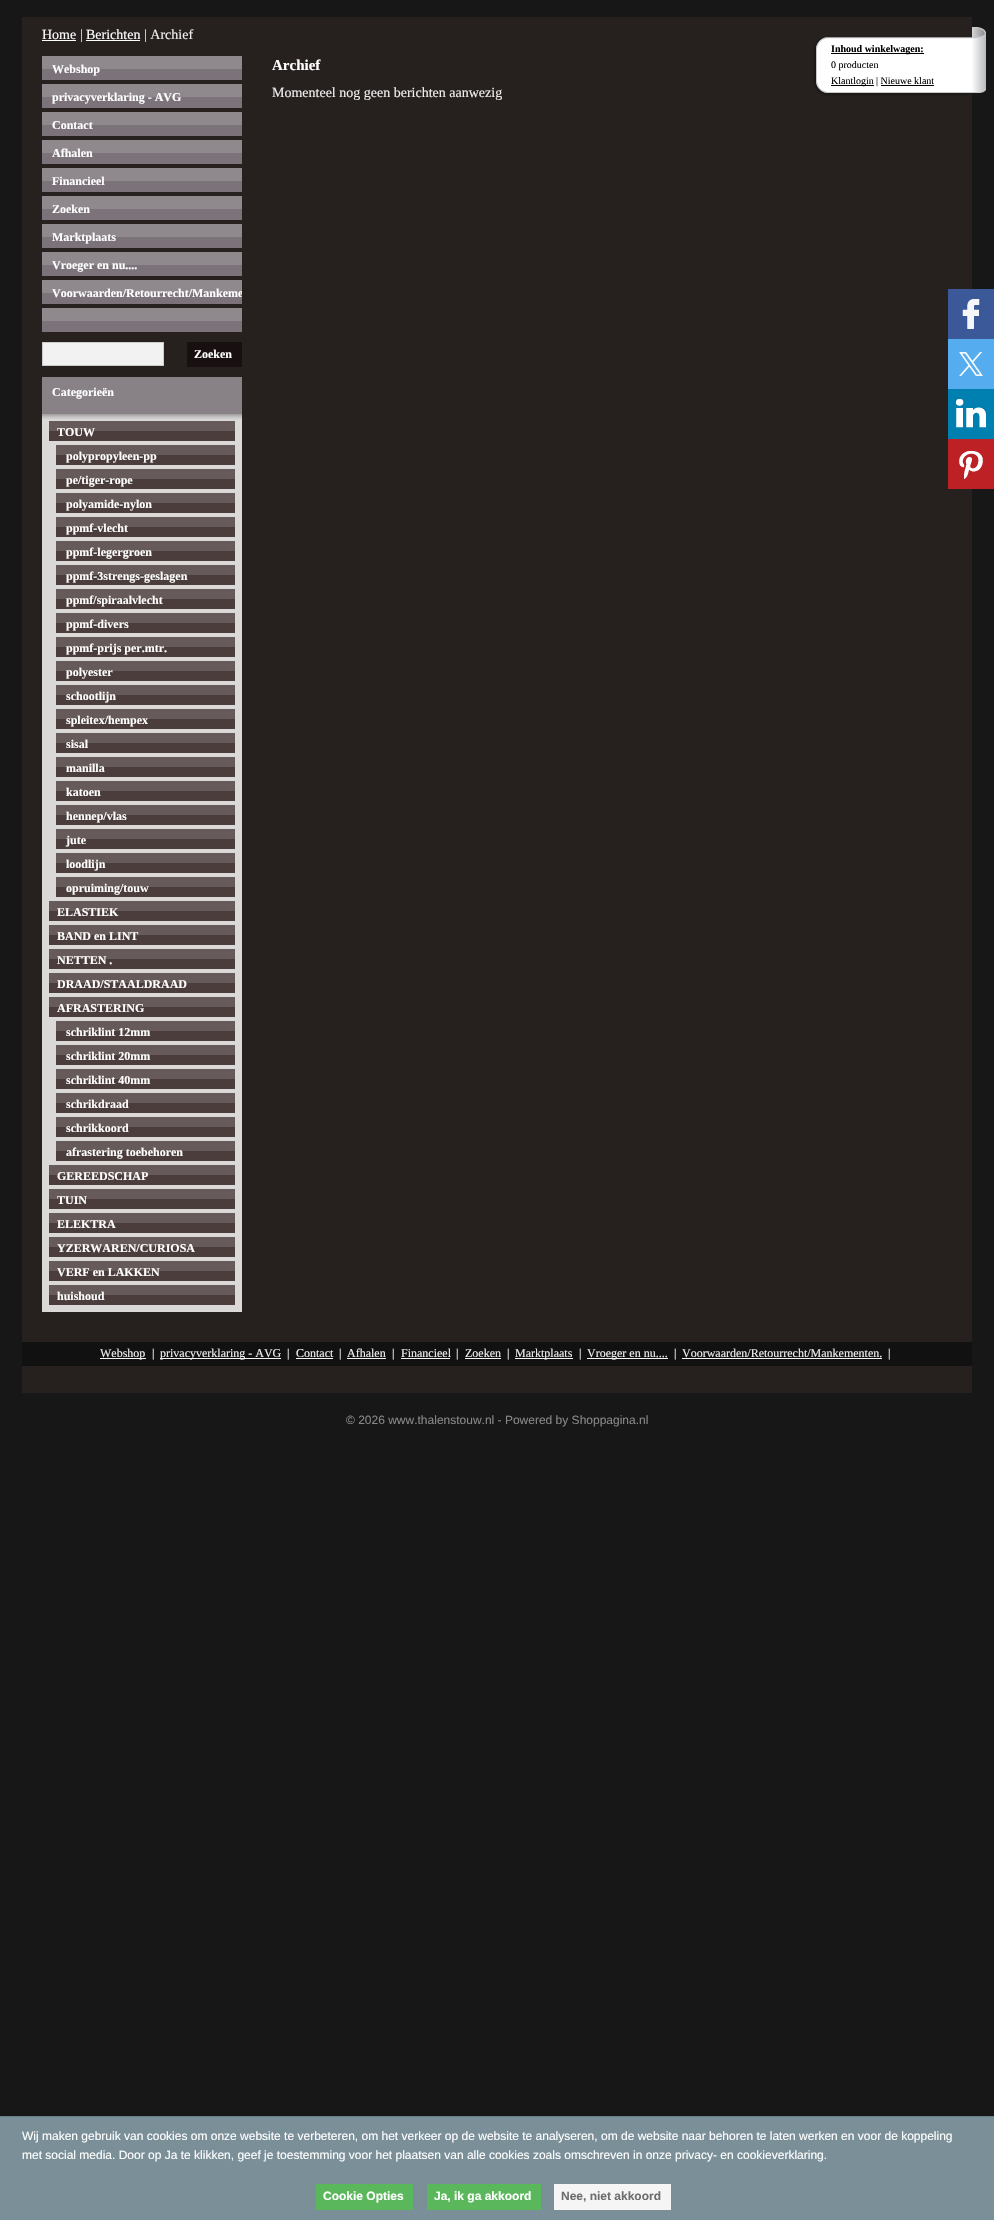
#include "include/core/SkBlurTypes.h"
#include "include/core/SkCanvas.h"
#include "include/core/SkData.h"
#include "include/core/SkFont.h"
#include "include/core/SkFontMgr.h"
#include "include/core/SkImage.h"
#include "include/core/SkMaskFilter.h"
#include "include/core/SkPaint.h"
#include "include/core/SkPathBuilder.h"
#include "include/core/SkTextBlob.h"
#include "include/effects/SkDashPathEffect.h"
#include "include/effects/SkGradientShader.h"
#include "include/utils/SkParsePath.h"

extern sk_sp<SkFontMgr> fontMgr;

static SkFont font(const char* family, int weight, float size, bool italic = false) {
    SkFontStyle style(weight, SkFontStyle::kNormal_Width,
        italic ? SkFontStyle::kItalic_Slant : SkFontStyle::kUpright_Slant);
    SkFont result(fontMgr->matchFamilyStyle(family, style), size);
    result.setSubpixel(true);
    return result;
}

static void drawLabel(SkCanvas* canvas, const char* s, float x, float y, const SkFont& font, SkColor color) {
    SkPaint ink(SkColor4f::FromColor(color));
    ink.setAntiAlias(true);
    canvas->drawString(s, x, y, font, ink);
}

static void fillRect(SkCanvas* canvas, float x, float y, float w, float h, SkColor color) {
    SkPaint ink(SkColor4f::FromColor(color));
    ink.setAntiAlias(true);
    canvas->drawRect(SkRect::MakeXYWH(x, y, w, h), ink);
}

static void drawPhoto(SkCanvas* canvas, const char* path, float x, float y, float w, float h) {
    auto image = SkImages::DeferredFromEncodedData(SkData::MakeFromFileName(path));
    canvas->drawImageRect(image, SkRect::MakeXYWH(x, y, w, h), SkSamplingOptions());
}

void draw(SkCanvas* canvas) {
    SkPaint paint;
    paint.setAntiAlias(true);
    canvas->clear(0xFF171717);
    fillRect(canvas, 22, 17, 950, 1376, 0xFF26211E);
    SkFont font1 = font("Liberation Serif", 400, 14);
    drawLabel(canvas, "Home", 42, 39, font1, 0xFFFFFFFF);
    fillRect(canvas, 42, 40, 34, 1, 0xFFFFFFFF);
    drawLabel(canvas, "|", 80, 39, font1, 0xFFF0F0F0);
    drawLabel(canvas, "Berichten", 86, 39, font1, 0xFFFFFFFF);
    fillRect(canvas, 86, 40, 54, 1, 0xFFFFFFFF);
    drawLabel(canvas, "| Archief", 144, 39, font1, 0xFFF0F0F0);
    fillRect(canvas, 42, 69, 200, 11, 0xFF7B7379);
    fillRect(canvas, 42, 56, 200, 13, 0xFF8F888D);
    SkFont font2 = font("Liberation Serif", 700, 12);
    drawLabel(canvas, "Webshop", 52, 73, font2, 0xFFFFFFFF);
    fillRect(canvas, 42, 97, 200, 11, 0xFF7B7379);
    fillRect(canvas, 42, 84, 200, 13, 0xFF8F888D);
    drawLabel(canvas, "privacyverklaring - AVG", 52, 101, font2, 0xFFFFFFFF);
    fillRect(canvas, 42, 125, 200, 11, 0xFF7B7379);
    fillRect(canvas, 42, 112, 200, 13, 0xFF8F888D);
    drawLabel(canvas, "Contact", 52, 129, font2, 0xFFFFFFFF);
    fillRect(canvas, 42, 153, 200, 11, 0xFF7B7379);
    fillRect(canvas, 42, 140, 200, 13, 0xFF8F888D);
    drawLabel(canvas, "Afhalen", 52, 157, font2, 0xFFFFFFFF);
    fillRect(canvas, 42, 181, 200, 11, 0xFF7B7379);
    fillRect(canvas, 42, 168, 200, 13, 0xFF8F888D);
    drawLabel(canvas, "Financieel", 52, 185, font2, 0xFFFFFFFF);
    fillRect(canvas, 42, 209, 200, 11, 0xFF7B7379);
    fillRect(canvas, 42, 196, 200, 13, 0xFF8F888D);
    drawLabel(canvas, "Zoeken", 52, 213, font2, 0xFFFFFFFF);
    fillRect(canvas, 42, 237, 200, 11, 0xFF7B7379);
    fillRect(canvas, 42, 224, 200, 13, 0xFF8F888D);
    drawLabel(canvas, "Marktplaats", 52, 241, font2, 0xFFFFFFFF);
    fillRect(canvas, 42, 265, 200, 11, 0xFF7B7379);
    fillRect(canvas, 42, 252, 200, 13, 0xFF8F888D);
    drawLabel(canvas, "Vroeger en nu....", 52, 269, font2, 0xFFFFFFFF);
    fillRect(canvas, 42, 293, 200, 11, 0xFF7B7379);
    fillRect(canvas, 42, 280, 200, 13, 0xFF8F888D);
    canvas->save();
    canvas->clipRect(SkRect::MakeXYWH(42, 280, 200, 24));
    drawLabel(canvas, "Voorwaarden/Retourrecht/Mankeme", 52, 297, font2, 0xFFFFFFFF);
    canvas->restore();
    fillRect(canvas, 42, 321, 200, 11, 0xFF7B7379);
    fillRect(canvas, 42, 308, 200, 13, 0xFF8F888D);
    paint.setColor(0xFFF2F2F2);
    canvas->drawRect(SkRect::MakeXYWH(42.5f, 342.5f, 121, 23), paint);
    paint.setStroke(true);
    paint.setStrokeWidth(1);
    paint.setColor(0xFFCCCCCC);
    canvas->drawRect(SkRect::MakeXYWH(42.5f, 342.5f, 121, 23), paint);
    fillRect(canvas, 187, 342, 55, 25, 0xFF170F10);
    drawLabel(canvas, "Zoeken", 194, 358, font2, 0xFFFFFFFF);
    fillRect(canvas, 42, 414, 200, 898, 0xFFDBD8D8);
    drawPhoto(canvas, "assets/img1.png", 42, 414, 200, 6);
    fillRect(canvas, 42, 377, 200, 37, 0xFF888186);
    drawLabel(canvas, "Categorieën", 52, 396, font2, 0xFFFFFFFF);
    fillRect(canvas, 49, 431, 186, 10, 0xFF4C3D3D);
    fillRect(canvas, 49, 421, 186, 10, 0xFF675A5A);
    drawLabel(canvas, "TOUW", 57, 436, font2, 0xFFFFFFFF);
    fillRect(canvas, 56, 455, 179, 10, 0xFF4C3D3D);
    fillRect(canvas, 56, 445, 179, 10, 0xFF675A5A);
    drawLabel(canvas, "polypropyleen-pp", 66, 460, font2, 0xFFFFFFFF);
    fillRect(canvas, 56, 479, 179, 10, 0xFF4C3D3D);
    fillRect(canvas, 56, 469, 179, 10, 0xFF675A5A);
    drawLabel(canvas, "pe/tiger-rope", 66, 484, font2, 0xFFFFFFFF);
    fillRect(canvas, 56, 503, 179, 10, 0xFF4C3D3D);
    fillRect(canvas, 56, 493, 179, 10, 0xFF675A5A);
    drawLabel(canvas, "polyamide-nylon", 66, 508, font2, 0xFFFFFFFF);
    fillRect(canvas, 56, 527, 179, 10, 0xFF4C3D3D);
    fillRect(canvas, 56, 517, 179, 10, 0xFF675A5A);
    drawLabel(canvas, "ppmf-vlecht", 66, 532, font2, 0xFFFFFFFF);
    fillRect(canvas, 56, 551, 179, 10, 0xFF4C3D3D);
    fillRect(canvas, 56, 541, 179, 10, 0xFF675A5A);
    drawLabel(canvas, "ppmf-legergroen", 66, 556, font2, 0xFFFFFFFF);
    fillRect(canvas, 56, 575, 179, 10, 0xFF4C3D3D);
    fillRect(canvas, 56, 565, 179, 10, 0xFF675A5A);
    drawLabel(canvas, "ppmf-3strengs-geslagen", 66, 580, font2, 0xFFFFFFFF);
    fillRect(canvas, 56, 599, 179, 10, 0xFF4C3D3D);
    fillRect(canvas, 56, 589, 179, 10, 0xFF675A5A);
    drawLabel(canvas, "ppmf/spiraalvlecht", 66, 604, font2, 0xFFFFFFFF);
    fillRect(canvas, 56, 623, 179, 10, 0xFF4C3D3D);
    fillRect(canvas, 56, 613, 179, 10, 0xFF675A5A);
    drawLabel(canvas, "ppmf-divers", 66, 628, font2, 0xFFFFFFFF);
    fillRect(canvas, 56, 647, 179, 10, 0xFF4C3D3D);
    fillRect(canvas, 56, 637, 179, 10, 0xFF675A5A);
    drawLabel(canvas, "ppmf-prijs per.mtr.", 66, 652, font2, 0xFFFFFFFF);
    fillRect(canvas, 56, 671, 179, 10, 0xFF4C3D3D);
    fillRect(canvas, 56, 661, 179, 10, 0xFF675A5A);
    drawLabel(canvas, "polyester", 66, 676, font2, 0xFFFFFFFF);
    fillRect(canvas, 56, 695, 179, 10, 0xFF4C3D3D);
    fillRect(canvas, 56, 685, 179, 10, 0xFF675A5A);
    drawLabel(canvas, "schootlijn", 66, 700, font2, 0xFFFFFFFF);
    fillRect(canvas, 56, 719, 179, 10, 0xFF4C3D3D);
    fillRect(canvas, 56, 709, 179, 10, 0xFF675A5A);
    drawLabel(canvas, "spleitex/hempex", 66, 724, font2, 0xFFFFFFFF);
    fillRect(canvas, 56, 743, 179, 10, 0xFF4C3D3D);
    fillRect(canvas, 56, 733, 179, 10, 0xFF675A5A);
    drawLabel(canvas, "sisal", 66, 748, font2, 0xFFFFFFFF);
    fillRect(canvas, 56, 767, 179, 10, 0xFF4C3D3D);
    fillRect(canvas, 56, 757, 179, 10, 0xFF675A5A);
    drawLabel(canvas, "manilla", 66, 772, font2, 0xFFFFFFFF);
    fillRect(canvas, 56, 791, 179, 10, 0xFF4C3D3D);
    fillRect(canvas, 56, 781, 179, 10, 0xFF675A5A);
    drawLabel(canvas, "katoen", 66, 796, font2, 0xFFFFFFFF);
    fillRect(canvas, 56, 815, 179, 10, 0xFF4C3D3D);
    fillRect(canvas, 56, 805, 179, 10, 0xFF675A5A);
    drawLabel(canvas, "hennep/vlas", 66, 820, font2, 0xFFFFFFFF);
    fillRect(canvas, 56, 839, 179, 10, 0xFF4C3D3D);
    fillRect(canvas, 56, 829, 179, 10, 0xFF675A5A);
    drawLabel(canvas, "jute", 66, 844, font2, 0xFFFFFFFF);
    fillRect(canvas, 56, 863, 179, 10, 0xFF4C3D3D);
    fillRect(canvas, 56, 853, 179, 10, 0xFF675A5A);
    drawLabel(canvas, "loodlijn", 66, 868, font2, 0xFFFFFFFF);
    fillRect(canvas, 56, 887, 179, 10, 0xFF4C3D3D);
    fillRect(canvas, 56, 877, 179, 10, 0xFF675A5A);
    drawLabel(canvas, "opruiming/touw", 66, 892, font2, 0xFFFFFFFF);
    fillRect(canvas, 49, 911, 186, 10, 0xFF4C3D3D);
    fillRect(canvas, 49, 901, 186, 10, 0xFF675A5A);
    drawLabel(canvas, "ELASTIEK", 57, 916, font2, 0xFFFFFFFF);
    fillRect(canvas, 49, 935, 186, 10, 0xFF4C3D3D);
    fillRect(canvas, 49, 925, 186, 10, 0xFF675A5A);
    drawLabel(canvas, "BAND en LINT", 57, 940, font2, 0xFFFFFFFF);
    fillRect(canvas, 49, 959, 186, 10, 0xFF4C3D3D);
    fillRect(canvas, 49, 949, 186, 10, 0xFF675A5A);
    drawLabel(canvas, "NETTEN .", 57, 964, font2, 0xFFFFFFFF);
    fillRect(canvas, 49, 983, 186, 10, 0xFF4C3D3D);
    fillRect(canvas, 49, 973, 186, 10, 0xFF675A5A);
    drawLabel(canvas, "DRAAD/STAALDRAAD", 57, 988, font2, 0xFFFFFFFF);
    fillRect(canvas, 49, 1007, 186, 10, 0xFF4C3D3D);
    fillRect(canvas, 49, 997, 186, 10, 0xFF675A5A);
    drawLabel(canvas, "AFRASTERING", 57, 1012, font2, 0xFFFFFFFF);
    fillRect(canvas, 56, 1031, 179, 10, 0xFF4C3D3D);
    fillRect(canvas, 56, 1021, 179, 10, 0xFF675A5A);
    drawLabel(canvas, "schriklint 12mm", 66, 1036, font2, 0xFFFFFFFF);
    fillRect(canvas, 56, 1055, 179, 10, 0xFF4C3D3D);
    fillRect(canvas, 56, 1045, 179, 10, 0xFF675A5A);
    drawLabel(canvas, "schriklint 20mm", 66, 1060, font2, 0xFFFFFFFF);
    fillRect(canvas, 56, 1079, 179, 10, 0xFF4C3D3D);
    fillRect(canvas, 56, 1069, 179, 10, 0xFF675A5A);
    drawLabel(canvas, "schriklint 40mm", 66, 1084, font2, 0xFFFFFFFF);
    fillRect(canvas, 56, 1103, 179, 10, 0xFF4C3D3D);
    fillRect(canvas, 56, 1093, 179, 10, 0xFF675A5A);
    drawLabel(canvas, "schrikdraad", 66, 1108, font2, 0xFFFFFFFF);
    fillRect(canvas, 56, 1127, 179, 10, 0xFF4C3D3D);
    fillRect(canvas, 56, 1117, 179, 10, 0xFF675A5A);
    drawLabel(canvas, "schrikkoord", 66, 1132, font2, 0xFFFFFFFF);
    fillRect(canvas, 56, 1151, 179, 10, 0xFF4C3D3D);
    fillRect(canvas, 56, 1141, 179, 10, 0xFF675A5A);
    drawLabel(canvas, "afrastering toebehoren", 66, 1156, font2, 0xFFFFFFFF);
    fillRect(canvas, 49, 1175, 186, 10, 0xFF4C3D3D);
    fillRect(canvas, 49, 1165, 186, 10, 0xFF675A5A);
    drawLabel(canvas, "GEREEDSCHAP", 57, 1180, font2, 0xFFFFFFFF);
    fillRect(canvas, 49, 1199, 186, 10, 0xFF4C3D3D);
    fillRect(canvas, 49, 1189, 186, 10, 0xFF675A5A);
    drawLabel(canvas, "TUIN", 57, 1204, font2, 0xFFFFFFFF);
    fillRect(canvas, 49, 1223, 186, 10, 0xFF4C3D3D);
    fillRect(canvas, 49, 1213, 186, 10, 0xFF675A5A);
    drawLabel(canvas, "ELEKTRA", 57, 1228, font2, 0xFFFFFFFF);
    fillRect(canvas, 49, 1247, 186, 10, 0xFF4C3D3D);
    fillRect(canvas, 49, 1237, 186, 10, 0xFF675A5A);
    drawLabel(canvas, "YZERWAREN/CURIOSA", 57, 1252, font2, 0xFFFFFFFF);
    fillRect(canvas, 49, 1271, 186, 10, 0xFF4C3D3D);
    fillRect(canvas, 49, 1261, 186, 10, 0xFF675A5A);
    drawLabel(canvas, "VERF en LAKKEN", 57, 1276, font2, 0xFFFFFFFF);
    fillRect(canvas, 49, 1295, 186, 10, 0xFF4C3D3D);
    fillRect(canvas, 49, 1285, 186, 10, 0xFF675A5A);
    drawLabel(canvas, "huishoud", 57, 1300, font2, 0xFFFFFFFF);
    SkFont font3 = font("Liberation Serif", 700, 15);
    drawLabel(canvas, "Archief", 272, 70, font3, 0xFFFFFFFF);
    drawLabel(canvas, "Momenteel nog geen berichten aanwezig", 272, 97, font1, 0xFFF0F0F0);
    drawPhoto(canvas, "assets/img2.png", 813, 27, 173, 69);
    fillRect(canvas, 831, 53, 93, 1, 0xFF000000);
    SkFont font4 = font("Liberation Serif", 700, 10);
    drawLabel(canvas, "Inhoud winkelwagen:", 831, 52, font4, 0xFF000000);
    SkFont font5 = font("Liberation Serif", 400, 10);
    drawLabel(canvas, "0 producten", 831, 68, font5, 0xFF000000);
    fillRect(canvas, 831, 85, 43, 1, 0xFF000000);
    drawLabel(canvas, "Klantlogin", 831, 84, font5, 0xFF000000);
    drawLabel(canvas, "| Nieuwe klant", 876, 84, font5, 0xFF000000);
    fillRect(canvas, 881, 85, 53, 1, 0xFF000000);
    fillRect(canvas, 22, 1342, 950, 24, 0xFF121111);
    fillRect(canvas, 100, 1358, 46, 1, 0xFFF5F5F5);
    SkFont font6 = font("Liberation Serif", 400, 12);
    drawLabel(canvas, "Webshop", 100, 1357, font6, 0xFFF0F0F0);
    drawLabel(canvas, "|", 152, 1357, font6, 0xFFFFFFFF);
    fillRect(canvas, 160, 1358, 121, 1, 0xFFF5F5F5);
    drawLabel(canvas, "privacyverklaring - AVG", 160, 1357, font6, 0xFFF0F0F0);
    drawLabel(canvas, "|", 287, 1357, font6, 0xFFFFFFFF);
    drawLabel(canvas, "Contact", 296, 1357, font6, 0xFFF0F0F0);
    fillRect(canvas, 296, 1358, 37, 1, 0xFFF5F5F5);
    drawLabel(canvas, "|", 339, 1357, font6, 0xFFFFFFFF);
    drawLabel(canvas, "Afhalen", 347, 1357, font6, 0xFFF0F0F0);
    fillRect(canvas, 347, 1358, 39, 1, 0xFFF5F5F5);
    drawLabel(canvas, "|", 392, 1357, font6, 0xFFFFFFFF);
    drawLabel(canvas, "Financieel", 401, 1357, font6, 0xFFF0F0F0);
    fillRect(canvas, 401, 1358, 49, 1, 0xFFF5F5F5);
    drawLabel(canvas, "|", 456, 1357, font6, 0xFFFFFFFF);
    drawLabel(canvas, "Zoeken", 465, 1357, font6, 0xFFF0F0F0);
    fillRect(canvas, 465, 1358, 36, 1, 0xFFF5F5F5);
    drawLabel(canvas, "|", 507, 1357, font6, 0xFFFFFFFF);
    fillRect(canvas, 515, 1358, 58, 1, 0xFFF5F5F5);
    drawLabel(canvas, "Marktplaats", 515, 1357, font6, 0xFFF0F0F0);
    drawLabel(canvas, "|", 579, 1357, font6, 0xFFFFFFFF);
    fillRect(canvas, 587, 1358, 81, 1, 0xFFF5F5F5);
    drawLabel(canvas, "Vroeger en nu....", 587, 1357, font6, 0xFFF0F0F0);
    drawLabel(canvas, "|", 674, 1357, font6, 0xFFFFFFFF);
    drawLabel(canvas, "Voorwaarden/Retourrecht/Mankementen.", 682, 1357, font6, 0xFFF0F0F0);
    fillRect(canvas, 682, 1358, 200, 1, 0xFFF5F5F5);
    drawLabel(canvas, "|", 888, 1357, font6, 0xFFFFFFFF);
    SkFont font7 = font("Liberation Sans", 400, 12);
    drawLabel(canvas, "© 2026 www.thalenstouw.nl - Powered by Shoppagina.nl", 346, 1424, font7, 0xFF888888);
    fillRect(canvas, 948, 289, 46, 50, 0xFF3B5998);
    drawPhoto(canvas, "assets/img3.png", 962, 299, 18, 30);
    fillRect(canvas, 948, 339, 46, 50, 0xFF55ACEE);
    drawPhoto(canvas, "assets/img4.png", 959, 352, 24, 24);
    fillRect(canvas, 948, 389, 46, 50, 0xFF007FB1);
    drawPhoto(canvas, "assets/img5.png", 956, 399, 30, 29);
    fillRect(canvas, 948, 439, 46, 50, 0xFFBD2126);
    drawPhoto(canvas, "assets/img6.png", 959, 451, 24, 28);
    fillRect(canvas, 0, 2117, 994, 103, 0xFF7A8F98);
    fillRect(canvas, 0, 2116, 994, 1, 0xFF697E87);
    drawLabel(canvas, "Wij maken gebruik van cookies om onze website te verbeteren, om het verkeer op de website te analyseren, om de website naar behoren te laten werken en voor de koppeling", 22, 2140, font7, 0xFFFFFFFF);
    drawLabel(canvas, "met social media. Door op Ja te klikken, geef je toestemming voor het plaatsen van alle cookies zoals omschreven in onze privacy- en cookieverklaring.", 22, 2159, font7, 0xFFFFFFFF);
    fillRect(canvas, 316, 2184, 97, 26, 0xFF5BB75B);
    SkFont font8 = font("Liberation Sans", 700, 12);
    drawLabel(canvas, "Cookie Opties", 323, 2200, font8, 0xFFFFFFFF);
    fillRect(canvas, 427, 2184, 114, 26, 0xFF5BB75B);
    drawLabel(canvas, "Ja, ik ga akkoord", 434, 2200, font8, 0xFFFFFFFF);
    fillRect(canvas, 554, 2184, 117, 26, 0xFFF5F5F5);
    drawLabel(canvas, "Nee, niet akkoord", 561, 2200, font8, 0xFF6D6D6D);
}
